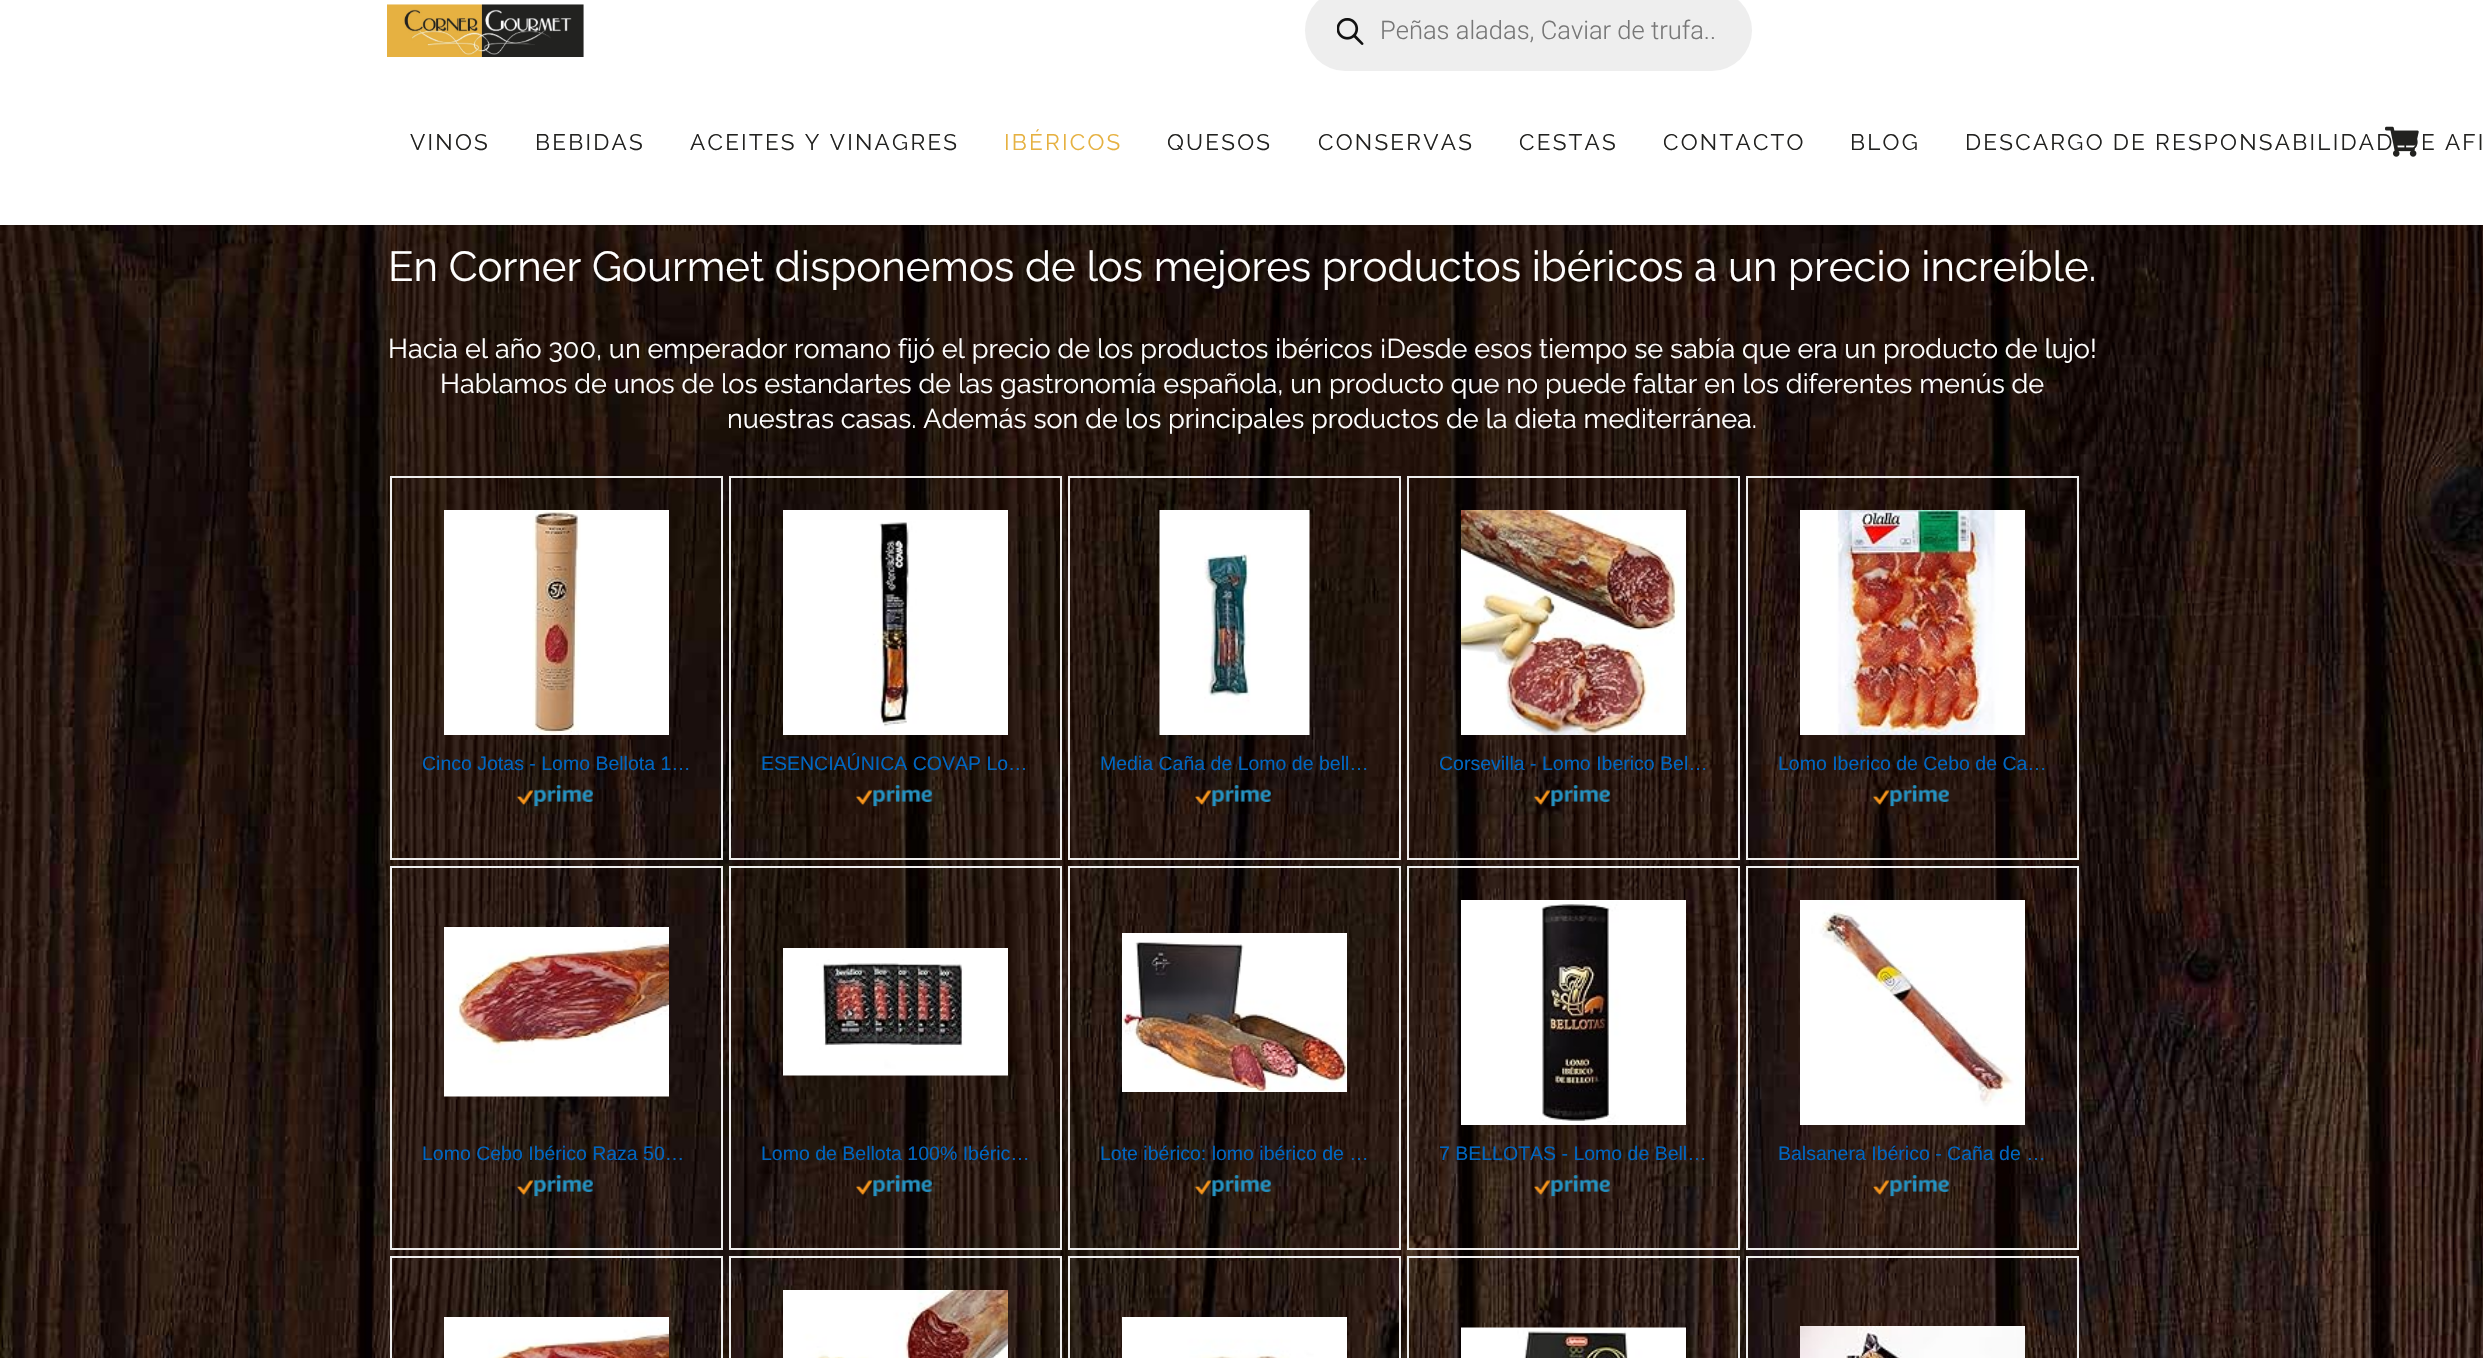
#include "include/core/SkBlurTypes.h"
#include "include/core/SkCanvas.h"
#include "include/core/SkData.h"
#include "include/core/SkFont.h"
#include "include/core/SkFontMgr.h"
#include "include/core/SkImage.h"
#include "include/core/SkMaskFilter.h"
#include "include/core/SkPaint.h"
#include "include/core/SkPathBuilder.h"
#include "include/core/SkTextBlob.h"
#include "include/effects/SkDashPathEffect.h"
#include "include/effects/SkGradientShader.h"
#include "include/utils/SkParsePath.h"

extern sk_sp<SkFontMgr> fontMgr;

static SkFont font(const char* family, int weight, float size, bool italic = false) {
    SkFontStyle style(weight, SkFontStyle::kNormal_Width,
        italic ? SkFontStyle::kItalic_Slant : SkFontStyle::kUpright_Slant);
    SkFont result(fontMgr->matchFamilyStyle(family, style), size);
    result.setSubpixel(true);
    return result;
}

static void drawLabel(SkCanvas* canvas, const char* s, float x, float y, const SkFont& font, SkColor color) {
    SkPaint ink(SkColor4f::FromColor(color));
    ink.setAntiAlias(true);
    canvas->drawString(s, x, y, font, ink);
}

static void drawTracked(SkCanvas* canvas, const char* s, float x, float y, const SkFont& font, const SkPaint& ink, float letter, float word) {
    std::vector<SkGlyphID> glyphs(font.countText(s, strlen(s), SkTextEncoding::kUTF8));
    std::vector<float> xs(glyphs.size());
    font.textToGlyphs(s, strlen(s), SkTextEncoding::kUTF8, glyphs);
    font.getXPos(glyphs, xs, x);
    float extra = 0;
    for (size_t i = 0; i < glyphs.size(); i++) {
        xs[i] += extra;
        extra += letter + word * (glyphs[i] == font.unicharToGlyph(' '));
    }
    canvas->drawTextBlob(SkTextBlob::MakeFromPosHGlyphs(glyphs, xs, y, font), 0, 0, ink);
}

static void fillRect(SkCanvas* canvas, float x, float y, float w, float h, SkColor color) {
    SkPaint ink(SkColor4f::FromColor(color));
    ink.setAntiAlias(true);
    canvas->drawRect(SkRect::MakeXYWH(x, y, w, h), ink);
}

static void fillRRect(SkCanvas* canvas, float x, float y, float w, float h, float radius, SkColor color) {
    SkPaint ink(SkColor4f::FromColor(color));
    ink.setAntiAlias(true);
    canvas->drawRoundRect(SkRect::MakeXYWH(x, y, w, h), radius, radius, ink);
}

static void drawPhoto(SkCanvas* canvas, const char* path, float x, float y, float w, float h) {
    auto image = SkImages::DeferredFromEncodedData(SkData::MakeFromFileName(path));
    canvas->drawImageRect(image, SkRect::MakeXYWH(x, y, w, h), SkSamplingOptions());
}

void draw(SkCanvas* canvas) {
    SkPaint paint;
    paint.setAntiAlias(true);
    canvas->clear(0xFFFFFFFF);
    drawPhoto(canvas, "assets/img1.png", 387, 4, 197, 53);
    fillRRect(canvas, 1305, -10, 447, 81, 40.5f, 0xFFEEEEEE);
    drawPhoto(canvas, "assets/img2.png", 1337, 18, 27, 27);
    SkFont font1 = font("Roboto", 300, 25.5f);
    drawLabel(canvas, "Peñas aladas, Caviar de trufa..", 1380, 39, font1, 0xFF777777);
    drawPhoto(canvas, "assets/img4.png", 0, 225, 2483, 1133);
    fillRect(canvas, 0, 225, 2483, 2, 0x14000000);
    drawPhoto(canvas, "assets/img3.png", 2385, 126, 34, 31);
    SkFont font2 = font("Raleway", 400, 22.5f);
    paint.setColor(0xFF222220);
    drawTracked(canvas, "VINOS", 410, 150, font2, paint, 2.25f, 0);
    drawTracked(canvas, "BEBIDAS", 535, 150, font2, paint, 2.25f, 0);
    drawTracked(canvas, "ACEITES Y VINAGRES", 690, 150, font2, paint, 2.25f, 0);
    paint.setColor(0xFFE6B141);
    drawTracked(canvas, "IBÉRICOS", 1004, 150, font2, paint, 2.25f, 0);
    paint.setColor(0xFF222220);
    drawTracked(canvas, "QUESOS", 1167, 150, font2, paint, 2.25f, 0);
    drawTracked(canvas, "CONSERVAS", 1318, 150, font2, paint, 2.25f, 0);
    drawTracked(canvas, "CESTAS", 1519, 150, font2, paint, 2.25f, 0);
    drawTracked(canvas, "CONTACTO", 1663, 150, font2, paint, 2.25f, 0);
    drawTracked(canvas, "BLOG", 1850, 150, font2, paint, 2.25f, 0);
    drawTracked(canvas, "DESCARGO DE RESPONSABILIDAD DE AFI", 1965, 150, font2, paint, 2.25f, 0);
    SkFont font3 = font("Raleway", 400, 42);
    drawLabel(canvas, "En Corner Gourmet disponemos de los mejores productos ibéricos a un precio increíble.", 388, 281, font3, 0xFFFFFFFF);
    SkFont font4 = font("Raleway", 400, 27);
    drawLabel(canvas, "Hacia el año 300, un emperador romano fijó el precio de los productos ibéricos ¡Desde esos tiempo se sabía que era un producto de lujo!", 388, 358, font4, 0xFFFFFFFF);
    drawLabel(canvas, "Hablamos de unos de los estandartes de las gastronomía española, un producto que no puede faltar en los diferentes menús de", 440, 393, font4, 0xFFFFFFFF);
    drawLabel(canvas, "nuestras casas. Además son de los principales productos de la dieta mediterránea.", 727, 428, font4, 0xFFFFFFFF);
    paint.setStroke(true);
    paint.setStrokeWidth(2);
    paint.setColor(0xFFEEEEEE);
    canvas->drawRect(SkRect::MakeXYWH(391, 477, 331, 382), paint);
    drawPhoto(canvas, "assets/img5.png", 444, 510, 225, 225);
    SkFont font5 = font("Liberation Sans", 400, 19.5f);
    drawLabel(canvas, "Cinco Jotas - Lomo Bellota 1…", 422, 770, font5, 0xFF0066C0);
    drawPhoto(canvas, "assets/img6.png", 517, 785, 76, 22);
    canvas->drawRect(SkRect::MakeXYWH(730, 477, 331, 382), paint);
    drawPhoto(canvas, "assets/img7.png", 783, 510, 225, 225);
    drawLabel(canvas, "ESENCIAÚNICA COVAP Lo…", 761, 770, font5, 0xFF0066C0);
    drawPhoto(canvas, "assets/img8.png", 856, 785, 76, 22);
    canvas->drawRect(SkRect::MakeXYWH(1069, 477, 331, 382), paint);
    drawPhoto(canvas, "assets/img9.png", 1159, 510, 151, 225);
    drawLabel(canvas, "Media Caña de Lomo de bell…", 1100, 770, font5, 0xFF0066C0);
    drawPhoto(canvas, "assets/img10.png", 1195, 785, 76, 22);
    canvas->drawRect(SkRect::MakeXYWH(1408, 477, 331, 382), paint);
    drawPhoto(canvas, "assets/img11.png", 1461, 510, 225, 225);
    drawLabel(canvas, "Corsevilla - Lomo Iberico Bel…", 1439, 770, font5, 0xFF0066C0);
    drawPhoto(canvas, "assets/img12.png", 1534, 785, 76, 22);
    canvas->drawRect(SkRect::MakeXYWH(1747, 477, 331, 382), paint);
    drawPhoto(canvas, "assets/img13.png", 1800, 510, 225, 225);
    drawLabel(canvas, "Lomo Iberico de Cebo de Ca…", 1778, 770, font5, 0xFF0066C0);
    drawPhoto(canvas, "assets/img14.png", 1873, 785, 76, 22);
    canvas->drawRect(SkRect::MakeXYWH(391, 867, 331, 382), paint);
    drawPhoto(canvas, "assets/img15.png", 444, 927, 225, 170);
    drawLabel(canvas, "Lomo Cebo Ibérico Raza 50…", 422, 1160, font5, 0xFF0066C0);
    drawPhoto(canvas, "assets/img16.png", 517, 1175, 76, 22);
    canvas->drawRect(SkRect::MakeXYWH(730, 867, 331, 382), paint);
    drawPhoto(canvas, "assets/img17.png", 783, 948, 225, 128);
    drawLabel(canvas, "Lomo de Bellota 100% Ibéric…", 761, 1160, font5, 0xFF0066C0);
    drawPhoto(canvas, "assets/img18.png", 856, 1175, 76, 22);
    canvas->drawRect(SkRect::MakeXYWH(1069, 867, 331, 382), paint);
    drawPhoto(canvas, "assets/img19.png", 1122, 933, 225, 159);
    drawLabel(canvas, "Lote ibérico: lomo ibérico de …", 1100, 1160, font5, 0xFF0066C0);
    drawPhoto(canvas, "assets/img20.png", 1195, 1175, 76, 22);
    canvas->drawRect(SkRect::MakeXYWH(1408, 867, 331, 382), paint);
    drawPhoto(canvas, "assets/img21.png", 1461, 900, 225, 225);
    drawLabel(canvas, "7 BELLOTAS - Lomo de Bell…", 1439, 1160, font5, 0xFF0066C0);
    drawPhoto(canvas, "assets/img22.png", 1534, 1175, 76, 22);
    canvas->drawRect(SkRect::MakeXYWH(1747, 867, 331, 382), paint);
    drawPhoto(canvas, "assets/img23.png", 1800, 900, 225, 225);
    drawLabel(canvas, "Balsanera Ibérico - Caña de …", 1778, 1160, font5, 0xFF0066C0);
    drawPhoto(canvas, "assets/img24.png", 1873, 1175, 76, 22);
    canvas->drawRect(SkRect::MakeXYWH(391, 1257, 331, 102), paint);
    drawPhoto(canvas, "assets/img25.png", 444, 1317, 225, 41);
    canvas->drawRect(SkRect::MakeXYWH(730, 1257, 331, 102), paint);
    drawPhoto(canvas, "assets/img26.png", 783, 1290, 225, 68);
    canvas->drawRect(SkRect::MakeXYWH(1069, 1257, 331, 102), paint);
    drawPhoto(canvas, "assets/img27.png", 1122, 1317, 225, 41);
    canvas->drawRect(SkRect::MakeXYWH(1408, 1257, 331, 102), paint);
    drawPhoto(canvas, "assets/img28.png", 1461, 1327, 225, 31);
    canvas->drawRect(SkRect::MakeXYWH(1747, 1257, 331, 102), paint);
    drawPhoto(canvas, "assets/img29.png", 1800, 1326, 225, 32);
}
